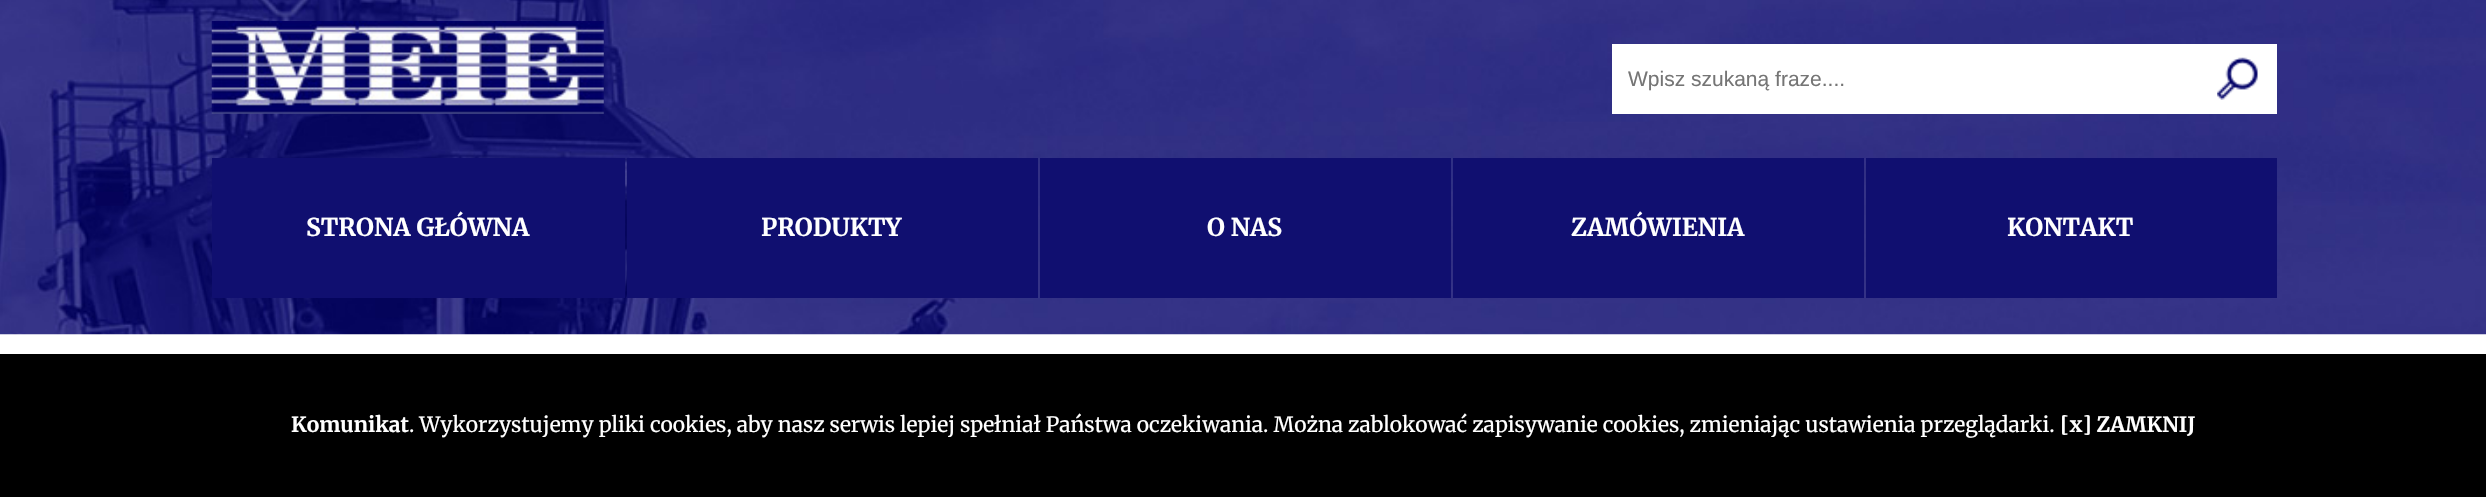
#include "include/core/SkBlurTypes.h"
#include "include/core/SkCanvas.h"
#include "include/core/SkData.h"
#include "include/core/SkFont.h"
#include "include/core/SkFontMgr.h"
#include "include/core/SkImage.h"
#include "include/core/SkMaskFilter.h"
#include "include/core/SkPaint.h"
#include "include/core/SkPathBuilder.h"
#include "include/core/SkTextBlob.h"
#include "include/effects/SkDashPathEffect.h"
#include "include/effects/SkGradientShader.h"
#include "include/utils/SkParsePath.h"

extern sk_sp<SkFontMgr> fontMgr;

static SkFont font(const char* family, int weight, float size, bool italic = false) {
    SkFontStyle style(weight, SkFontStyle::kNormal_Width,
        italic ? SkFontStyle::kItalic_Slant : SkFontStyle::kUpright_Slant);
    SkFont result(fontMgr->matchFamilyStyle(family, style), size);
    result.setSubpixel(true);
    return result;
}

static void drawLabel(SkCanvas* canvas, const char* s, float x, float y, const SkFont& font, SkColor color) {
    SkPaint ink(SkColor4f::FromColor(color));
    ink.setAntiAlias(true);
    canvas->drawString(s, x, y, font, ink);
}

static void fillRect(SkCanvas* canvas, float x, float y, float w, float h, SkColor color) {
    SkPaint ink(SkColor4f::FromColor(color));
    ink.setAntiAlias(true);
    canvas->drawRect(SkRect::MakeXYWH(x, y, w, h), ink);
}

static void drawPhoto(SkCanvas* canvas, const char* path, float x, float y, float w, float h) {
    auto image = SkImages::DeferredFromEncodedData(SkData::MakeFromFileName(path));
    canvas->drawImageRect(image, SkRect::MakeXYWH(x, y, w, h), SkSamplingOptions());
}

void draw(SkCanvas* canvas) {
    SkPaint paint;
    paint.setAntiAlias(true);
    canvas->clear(0xFFFFFFFF);
    drawPhoto(canvas, "assets/img1.png", 0, 0, 2486, 335);
    drawPhoto(canvas, "assets/img2.png", 211, 21, 393, 93);
    fillRect(canvas, 1612, 44, 665, 70, 0xFFFFFFFF);
    SkFont font1 = font("Liberation Sans", 400, 21);
    drawLabel(canvas, "Wpisz szukaną fraze....", 1628, 86, font1, 0xFF757575);
    drawPhoto(canvas, "assets/img3.png", 2217, 57, 41, 43);
    fillRect(canvas, 212, 158, 413, 140, 0xFF100F70);
    SkFont font2 = font("Merriweather", 700, 24.5f);
    drawLabel(canvas, "STRONA GŁÓWNA", 306, 236, font2, 0xFFFFFFFF);
    fillRect(canvas, 627, 158, 411, 140, 0xFF100F70);
    drawLabel(canvas, "PRODUKTY", 761, 236, font2, 0xFFFFFFFF);
    fillRect(canvas, 1040, 158, 411, 140, 0xFF100F70);
    drawLabel(canvas, "O NAS", 1207, 236, font2, 0xFFFFFFFF);
    fillRect(canvas, 1453, 158, 411, 140, 0xFF100F70);
    drawLabel(canvas, "ZAMÓWIENIA", 1571, 236, font2, 0xFFFFFFFF);
    fillRect(canvas, 1866, 158, 411, 140, 0xFF100F70);
    drawLabel(canvas, "KONTAKT", 2007, 236, font2, 0xFFFFFFFF);
    fillRect(canvas, 0, 354, 2486, 143, 0xFF000000);
    SkFont font3 = font("Merriweather", 700, 21);
    drawLabel(canvas, "Komunikat", 291, 432, font3, 0xFFFFFFFF);
    SkFont font4 = font("Merriweather", 400, 21);
    drawLabel(canvas, ". Wykorzystujemy pliki cookies, aby nasz serwis lepiej spełniał Państwa oczekiwania. Można zablokować zapisywanie cookies, zmieniając ustawienia przeglądarki.", 409, 432, font4, 0xFFFFFFFF);
    drawLabel(canvas, "[x] ZAMKNIJ", 2060, 432, font3, 0xFFFFFFFF);
}
